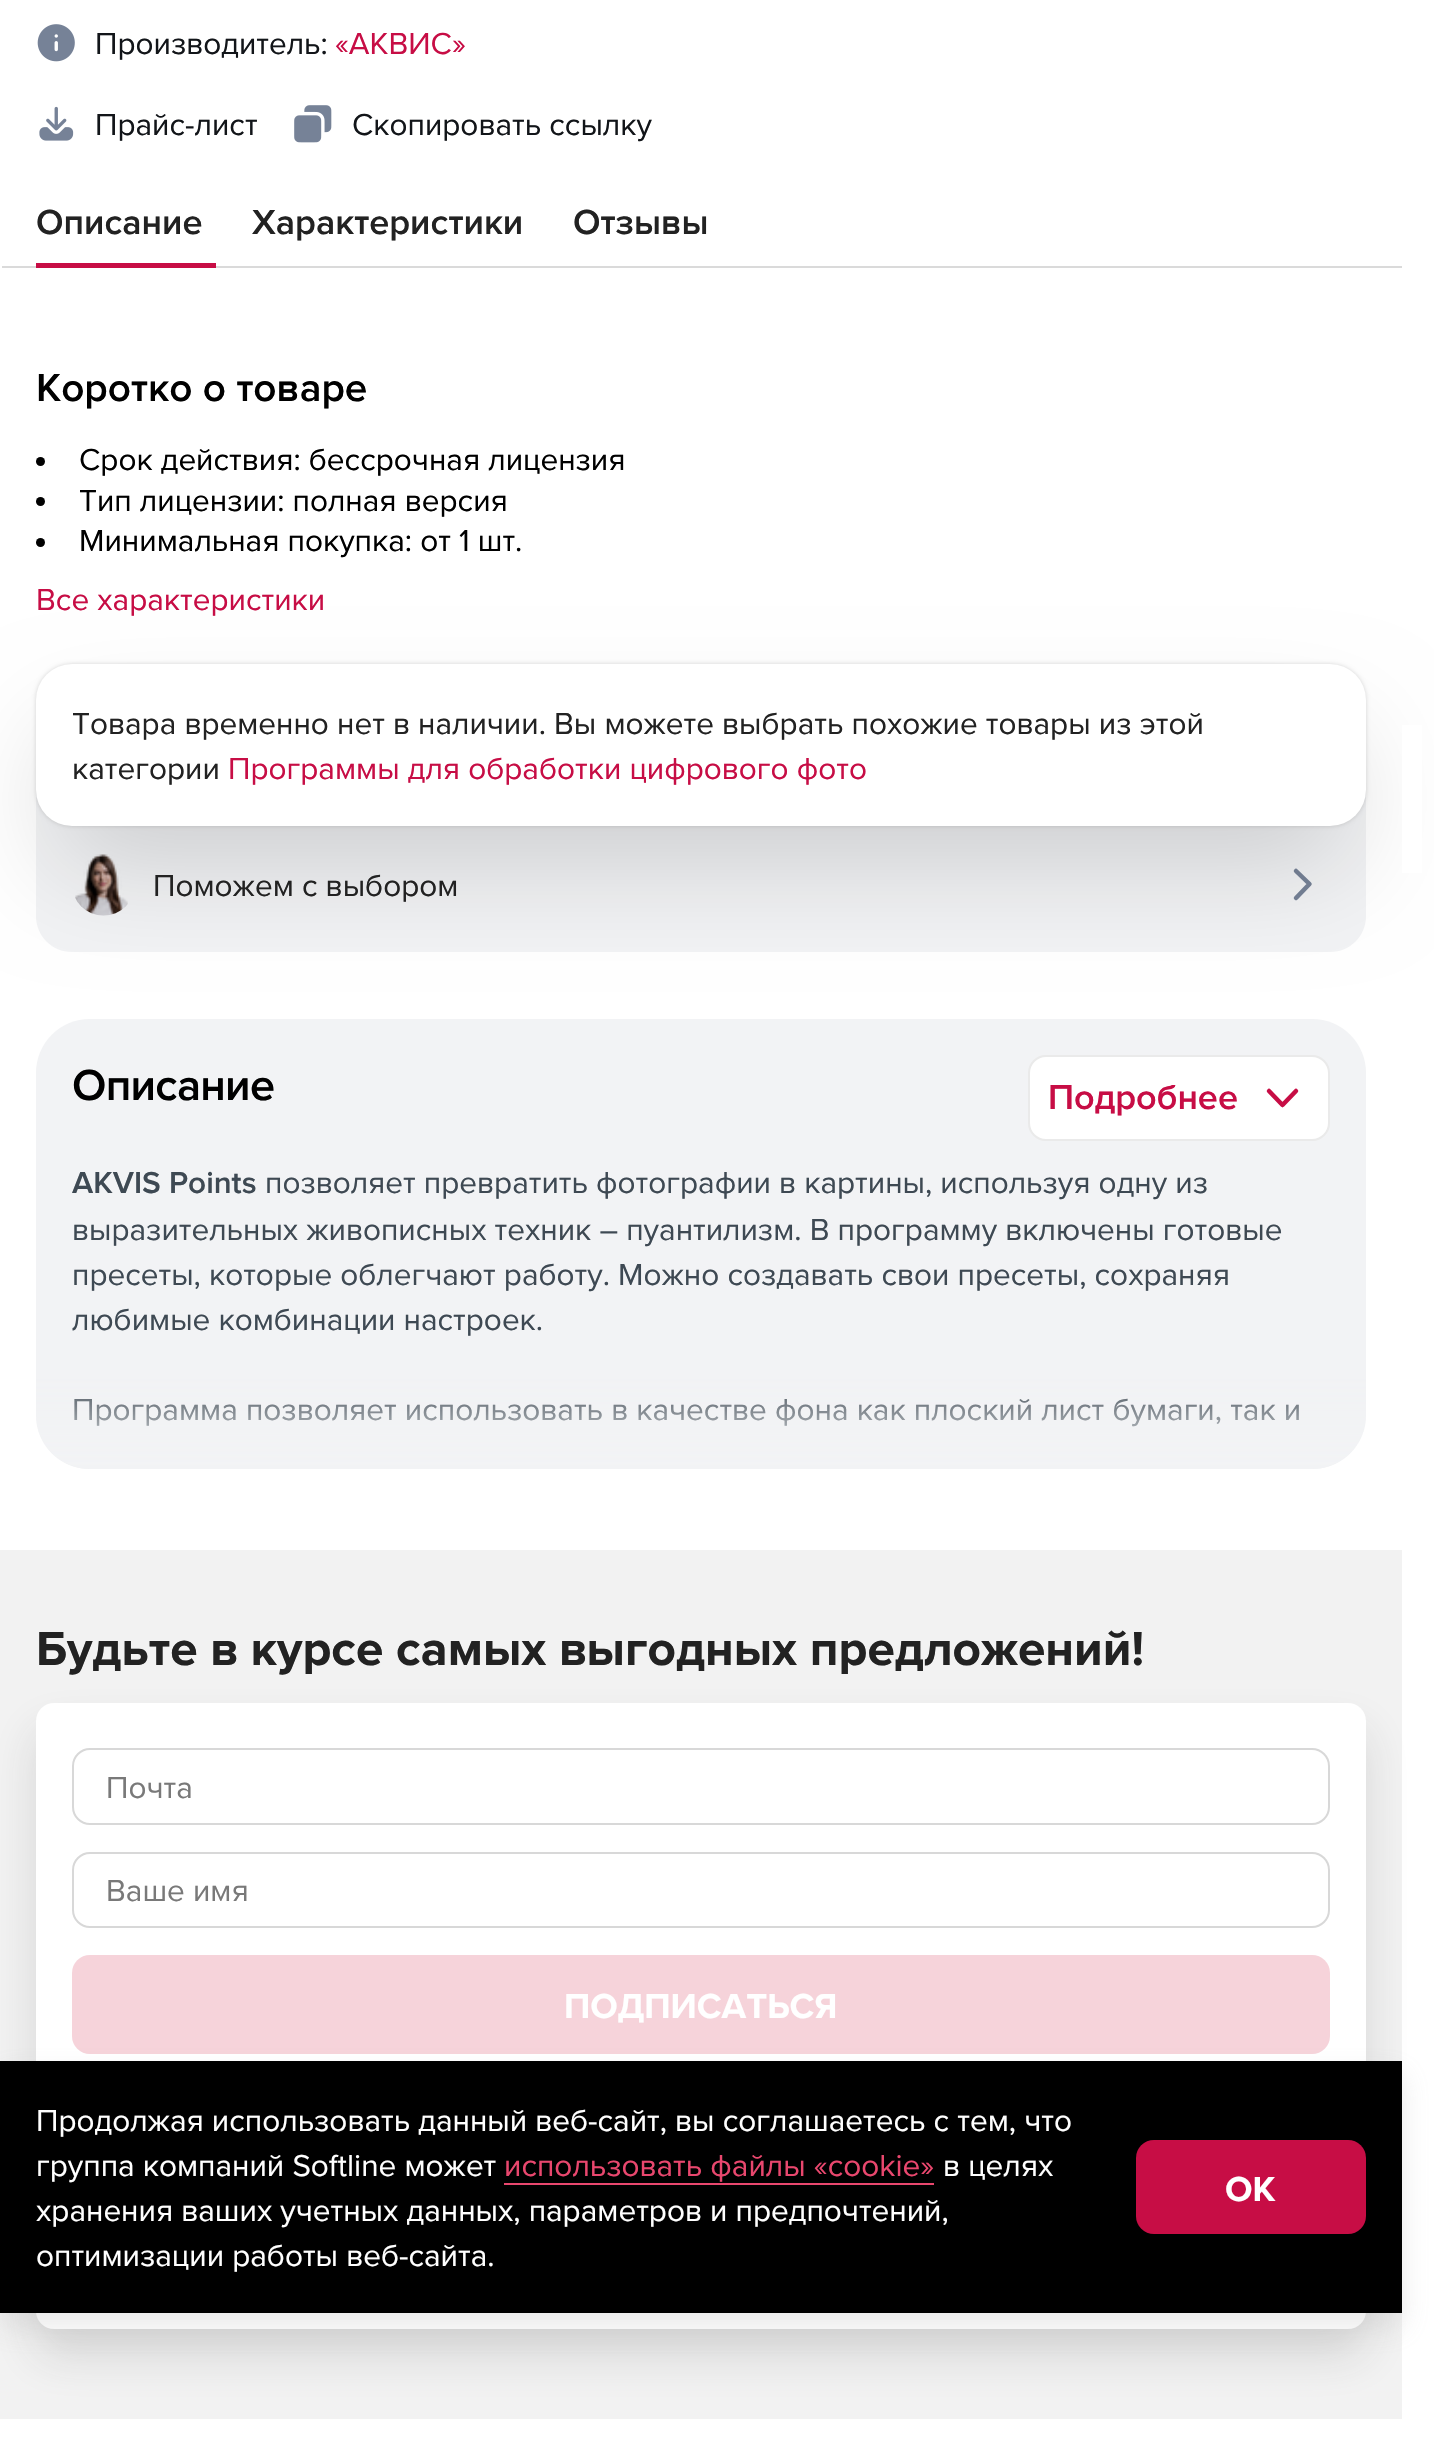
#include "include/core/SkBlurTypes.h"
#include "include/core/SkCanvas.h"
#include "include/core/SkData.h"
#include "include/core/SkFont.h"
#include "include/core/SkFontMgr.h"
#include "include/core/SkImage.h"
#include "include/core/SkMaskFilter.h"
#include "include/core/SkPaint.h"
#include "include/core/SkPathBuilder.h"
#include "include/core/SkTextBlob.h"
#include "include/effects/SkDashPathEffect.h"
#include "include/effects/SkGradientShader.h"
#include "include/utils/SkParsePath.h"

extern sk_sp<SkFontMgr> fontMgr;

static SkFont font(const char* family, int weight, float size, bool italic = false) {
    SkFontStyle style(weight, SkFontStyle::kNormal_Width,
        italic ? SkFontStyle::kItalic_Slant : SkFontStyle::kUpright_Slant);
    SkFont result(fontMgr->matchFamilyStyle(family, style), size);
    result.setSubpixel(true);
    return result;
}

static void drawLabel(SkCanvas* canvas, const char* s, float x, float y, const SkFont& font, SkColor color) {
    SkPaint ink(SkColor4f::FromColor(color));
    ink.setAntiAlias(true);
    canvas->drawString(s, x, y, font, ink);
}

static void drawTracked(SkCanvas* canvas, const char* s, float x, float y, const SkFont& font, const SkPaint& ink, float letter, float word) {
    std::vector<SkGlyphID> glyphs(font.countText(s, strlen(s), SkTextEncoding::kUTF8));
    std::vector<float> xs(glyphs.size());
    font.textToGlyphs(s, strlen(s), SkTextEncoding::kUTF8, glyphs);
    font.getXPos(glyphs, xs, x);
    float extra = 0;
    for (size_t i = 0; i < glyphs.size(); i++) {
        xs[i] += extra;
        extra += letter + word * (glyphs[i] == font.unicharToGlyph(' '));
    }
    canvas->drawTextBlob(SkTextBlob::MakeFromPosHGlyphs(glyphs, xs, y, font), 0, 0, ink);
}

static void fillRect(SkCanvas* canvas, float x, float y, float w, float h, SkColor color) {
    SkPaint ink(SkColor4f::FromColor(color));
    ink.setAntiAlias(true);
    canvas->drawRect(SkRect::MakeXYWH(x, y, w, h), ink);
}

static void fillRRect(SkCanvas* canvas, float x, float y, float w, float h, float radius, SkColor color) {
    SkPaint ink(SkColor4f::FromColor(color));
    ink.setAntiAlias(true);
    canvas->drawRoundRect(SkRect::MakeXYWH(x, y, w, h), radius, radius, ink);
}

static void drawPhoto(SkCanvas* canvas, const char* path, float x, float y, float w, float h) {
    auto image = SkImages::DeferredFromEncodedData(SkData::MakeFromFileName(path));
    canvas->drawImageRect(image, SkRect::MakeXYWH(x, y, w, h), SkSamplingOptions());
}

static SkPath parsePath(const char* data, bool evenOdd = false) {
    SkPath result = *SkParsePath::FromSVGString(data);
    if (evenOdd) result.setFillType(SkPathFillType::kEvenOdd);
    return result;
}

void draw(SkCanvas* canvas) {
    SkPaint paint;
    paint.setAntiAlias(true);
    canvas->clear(0xFFFFFFFF);
    drawPhoto(canvas, "assets/img1.png", 37, 24, 38, 38);
    SkFont font1 = font("Proxima Nova", 400, 31.5f);
    drawLabel(canvas, "Производитель:", 95, 54, font1, 0xFF121519);
    drawLabel(canvas, "«АКВИС»", 335, 54, font1, 0xFFC70D45);
    drawPhoto(canvas, "assets/img2.png", 39, 106, 35, 35);
    drawLabel(canvas, "Прайс-лист", 95, 135, font1, 0xFF121519);
    drawPhoto(canvas, "assets/img3.png", 294, 105, 38, 38);
    drawLabel(canvas, "Скопировать ссылку", 352, 135, font1, 0xFF121519);
    SkFont font2 = font("Proxima Nova", 600, 36);
    drawLabel(canvas, "Описание", 36, 234, font2, 0xFF222222);
    fillRect(canvas, 2, 266, 1400, 2, 0xFFDADADA);
    fillRect(canvas, 36, 263, 180, 5, 0xFFC70D45);
    drawLabel(canvas, "Характеристики", 252, 234, font2, 0xFF222222);
    drawLabel(canvas, "Отзывы", 573, 234, font2, 0xFF222222);
    SkFont font3 = font("Proxima Nova", 600, 40.5f);
    drawLabel(canvas, "Коротко о товаре", 36, 401, font3, 0xFF000000);
    paint.setColor(0xFF000000);
    canvas->drawCircle(40.5f, 461.5f, 4.5f, paint);
    drawLabel(canvas, "Срок действия: бессрочная лицензия", 79, 470, font1, 0xFF000000);
    canvas->drawCircle(40.5f, 501.5f, 4.5f, paint);
    drawLabel(canvas, "Тип лицензии: полная версия", 79, 511, font1, 0xFF000000);
    canvas->drawCircle(40.5f, 542.5f, 4.5f, paint);
    drawLabel(canvas, "Минимальная покупка: от 1 шт.", 79, 551, font1, 0xFF000000);
    drawLabel(canvas, "Все характеристики", 36, 610, font1, 0xFFC70D45);
    paint.setColor(0xFFF2F3F5);
    canvas->drawPath(parsePath("M36 790H1366V916C1366 936 1350 952 1330 952H72C52 952 36 936 36 916Z"), paint);
    paint.setColor(0x26000000);
    paint.setMaskFilter(SkMaskFilter::MakeBlur(kNormal_SkBlurStyle, 2));
    canvas->drawRoundRect(SkRect::MakeXYWH(36, 664, 1330, 162), 36, 36, paint);
    paint.setMaskFilter(nullptr);
    drawPhoto(canvas, "assets/img4.png", 75, 854, 53, 62);
    paint.setStroke(true);
    paint.setStrokeWidth(4.5f);
    paint.setStrokeCap(SkPaint::kRound_Cap);
    paint.setStrokeJoin(SkPaint::kRound_Join);
    paint.setColor(0xFF768297);
    canvas->drawPath(parsePath("M1296 898L1309.5 884L1296 871"), paint);
    fillRRect(canvas, 36, 1019, 1330, 450, 54, 0xFFF2F3F5);
    paint.setStroke(false);
    paint.setColor(0x29000000);
    paint.setMaskFilter(SkMaskFilter::MakeBlur(kNormal_SkBlurStyle, 54));
    canvas->drawRoundRect(SkRect::MakeXYWH(54, 736, 1294, 126), 18, 18, paint);
    paint.setMaskFilter(nullptr);
    fillRRect(canvas, 36, 664, 1330, 162, 36, 0xFFFFFFFF);
    drawLabel(canvas, "Товара временно нет в наличии. Вы можете выбрать похожие товары из этой", 72, 734, font1, 0xFF222222);
    drawLabel(canvas, "категории", 72, 779, font1, 0xFF222222);
    drawLabel(canvas, "Программы для обработки цифрового фото", 228, 779, font1, 0xFFC70D45);
    drawLabel(canvas, "Поможем с выбором", 153, 896, font1, 0xFF222222);
    SkFont font4 = font("Proxima Nova", 600, 45);
    paint.setColor(0xFF000000);
    drawTracked(canvas, "Описание", 72, 1100, font4, paint, -0.75f, 0);
    paint.setColor(0xFFFFFFFF);
    canvas->drawRoundRect(SkRect::MakeXYWH(1029, 1056, 300, 84), 17, 17, paint);
    paint.setStroke(true);
    paint.setStrokeWidth(2);
    paint.setStrokeCap(SkPaint::kButt_Cap);
    paint.setStrokeJoin(SkPaint::kMiter_Join);
    paint.setColor(0xFFEAEAEA);
    canvas->drawRoundRect(SkRect::MakeXYWH(1029, 1056, 300, 84), 17, 17, paint);
    drawLabel(canvas, "Подробнее", 1048, 1109, font2, 0xFFC70D45);
    paint.setStrokeWidth(4.5f);
    paint.setStrokeCap(SkPaint::kRound_Cap);
    paint.setStrokeJoin(SkPaint::kRound_Join);
    paint.setColor(0xFFC70D45);
    canvas->drawPath(parsePath("M1269 1091L1282.5 1105L1296 1091"), paint);
    SkFont font5 = font("Proxima Nova", 600, 31.5f);
    drawLabel(canvas, "AKVIS Points", 72, 1193, font5, 0xFF3E4953);
    drawLabel(canvas, "позволяет превратить фотографии в картины, используя одну из", 265, 1193, font1, 0xFF3E4953);
    drawLabel(canvas, "выразительных живописных техник – пуантилизм. В программу включены готовые", 72, 1240, font1, 0xFF3E4953);
    drawLabel(canvas, "пресеты, которые облегчают работу. Можно создавать свои пресеты, сохраняя", 72, 1285, font1, 0xFF3E4953);
    drawLabel(canvas, "любимые комбинации настроек.", 72, 1330, font1, 0xFF3E4953);
    drawLabel(canvas, "Программа позволяет использовать в качестве фона как плоский лист бумаги, так и", 72, 1420, font1, 0xFF3E4953);
    paint.setStroke(false);
    {
        const SkColor colors[] = {0x00F2F3F5, 0xFFF2F3F5};
        const float stops[] = {0, 1};
        const SkPoint ends[] = {{701, 1375}, {701, 1469}};
        paint.setShader(SkGradientShader::MakeLinear(ends, colors, stops, 2, SkTileMode::kClamp));
        paint.setAlpha(255);
    }
    canvas->drawPath(parsePath("M36 1375H1366V1415C1366 1445 1342 1469 1312 1469H90C60 1469 36 1445 36 1415Z"), paint);
    fillRect(canvas, 0, 1550, 1402, 869, 0xFFF2F2F2);
    SkFont font6 = font("Proxima Nova", 700, 49.5f);
    drawLabel(canvas, "Будьте в курсе самых выгодных предложений!", 36, 1665, font6, 0xFF222222);
    paint.setShader(nullptr);
    paint.setColor(0x262E2E2E);
    paint.setMaskFilter(SkMaskFilter::MakeBlur(kNormal_SkBlurStyle, 22.5f));
    canvas->drawRoundRect(SkRect::MakeXYWH(36, 1730, 1330, 626), 18, 18, paint);
    paint.setMaskFilter(nullptr);
    fillRRect(canvas, 36, 1703, 1330, 626, 18, 0xFFFFFFFF);
    paint.setStroke(true);
    paint.setStrokeWidth(2);
    paint.setStrokeCap(SkPaint::kButt_Cap);
    paint.setStrokeJoin(SkPaint::kMiter_Join);
    paint.setColor(0xFFD8D8D8);
    canvas->drawRoundRect(SkRect::MakeXYWH(73, 1749, 1256, 75), 17, 17, paint);
    drawLabel(canvas, "Почта", 106, 1798, font1, 0xFF797979);
    canvas->drawRoundRect(SkRect::MakeXYWH(73, 1853, 1256, 74), 17, 17, paint);
    drawLabel(canvas, "Ваше имя", 106, 1901, font1, 0xFF797979);
    fillRRect(canvas, 72, 1955, 1258, 99, 18, 0xFFF6D3DA);
    SkFont font7 = font("Proxima Nova", 700, 36);
    drawLabel(canvas, "ПОДПИСАТЬСЯ", 564, 2018, font7, 0xFFFFFFFF);
    fillRect(canvas, 1402, 725, 20, 148, 0xFFFFFFFF);
    paint.setStroke(false);
    paint.setColor(0x33989898);
    paint.setMaskFilter(SkMaskFilter::MakeBlur(kNormal_SkBlurStyle, 13.5f));
    canvas->drawRect(SkRect::MakeXYWH(0, 2075, 1402, 252), paint);
    paint.setMaskFilter(nullptr);
    fillRect(canvas, 0, 2061, 1402, 252, 0xFF000000);
    drawLabel(canvas, "Продолжая использовать данный веб-сайт, вы соглашаетесь с тем, что", 36, 2131, font1, 0xFFFFFFFF);
    drawLabel(canvas, "группа компаний Softline может", 36, 2176, font1, 0xFFFFFFFF);
    drawLabel(canvas, "использовать файлы «cookie»", 504, 2176, font1, 0xFFE9476E);
    fillRect(canvas, 504, 2183, 430, 2, 0xFFE9476E);
    drawLabel(canvas, "в целях", 943, 2176, font1, 0xFFFFFFFF);
    drawLabel(canvas, "хранения ваших учетных данных, параметров и предпочтений,", 36, 2221, font1, 0xFFFFFFFF);
    drawLabel(canvas, "оптимизации работы веб-сайта.", 36, 2266, font1, 0xFFFFFFFF);
    fillRRect(canvas, 1136, 2140, 230, 94, 18, 0xFFC70D45);
    drawLabel(canvas, "OK", 1225, 2201, font7, 0xFFFFFFFF);
}
